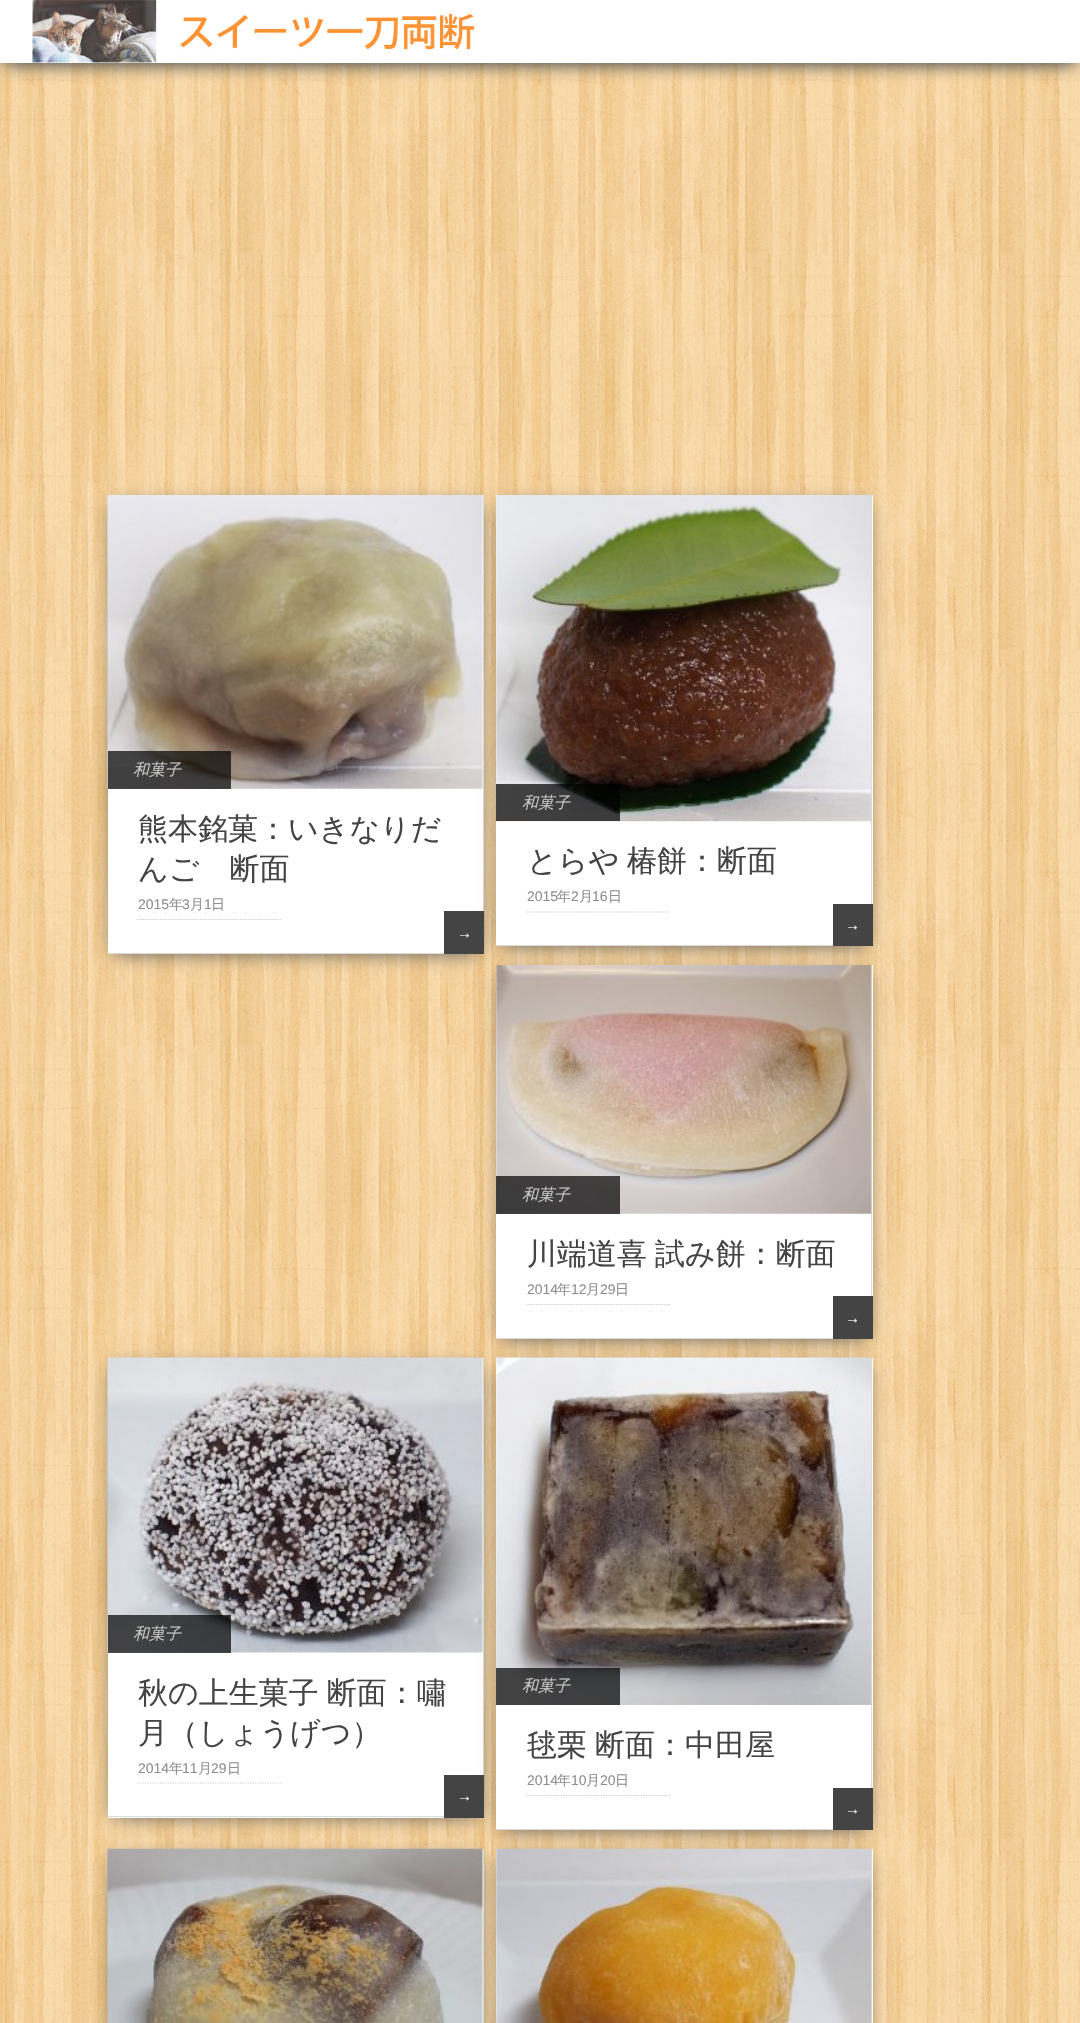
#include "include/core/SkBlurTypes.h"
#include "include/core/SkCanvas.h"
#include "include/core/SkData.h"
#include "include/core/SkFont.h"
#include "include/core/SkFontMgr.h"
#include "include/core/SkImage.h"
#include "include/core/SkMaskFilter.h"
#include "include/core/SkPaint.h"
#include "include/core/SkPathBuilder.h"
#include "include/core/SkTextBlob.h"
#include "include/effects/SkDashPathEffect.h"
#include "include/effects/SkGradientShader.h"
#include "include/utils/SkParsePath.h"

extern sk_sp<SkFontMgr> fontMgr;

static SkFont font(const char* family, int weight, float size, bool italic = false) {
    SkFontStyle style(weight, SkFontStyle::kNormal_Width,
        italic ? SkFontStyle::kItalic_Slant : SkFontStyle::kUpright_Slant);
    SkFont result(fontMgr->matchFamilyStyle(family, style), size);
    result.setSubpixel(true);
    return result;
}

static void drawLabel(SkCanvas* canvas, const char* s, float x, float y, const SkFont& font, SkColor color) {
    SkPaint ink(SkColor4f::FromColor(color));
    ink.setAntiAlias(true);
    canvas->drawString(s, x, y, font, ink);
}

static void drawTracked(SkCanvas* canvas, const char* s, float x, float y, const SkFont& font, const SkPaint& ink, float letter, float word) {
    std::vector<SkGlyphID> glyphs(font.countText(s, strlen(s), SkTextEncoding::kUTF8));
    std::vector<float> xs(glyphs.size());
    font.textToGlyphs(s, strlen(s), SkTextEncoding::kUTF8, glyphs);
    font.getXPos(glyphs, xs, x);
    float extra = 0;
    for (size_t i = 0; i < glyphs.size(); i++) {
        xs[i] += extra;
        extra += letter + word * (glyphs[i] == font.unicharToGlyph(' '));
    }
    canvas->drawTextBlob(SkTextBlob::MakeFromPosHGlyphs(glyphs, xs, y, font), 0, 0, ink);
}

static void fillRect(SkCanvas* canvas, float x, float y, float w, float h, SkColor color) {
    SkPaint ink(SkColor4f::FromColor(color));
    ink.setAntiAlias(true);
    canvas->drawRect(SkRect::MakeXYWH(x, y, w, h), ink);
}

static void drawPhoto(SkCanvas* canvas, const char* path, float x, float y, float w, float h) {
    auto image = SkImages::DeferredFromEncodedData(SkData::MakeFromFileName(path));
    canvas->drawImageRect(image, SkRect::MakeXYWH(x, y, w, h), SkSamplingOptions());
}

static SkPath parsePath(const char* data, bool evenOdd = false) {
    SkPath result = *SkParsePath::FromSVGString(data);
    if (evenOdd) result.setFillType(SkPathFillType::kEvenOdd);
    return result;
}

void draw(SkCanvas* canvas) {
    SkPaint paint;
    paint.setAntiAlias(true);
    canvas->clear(0xFFFFFFFF);
    drawPhoto(canvas, "assets/img1.png", 0, 63, 1080, 1960);
    paint.setColor(0xFF555555);
    paint.setMaskFilter(SkMaskFilter::MakeBlur(kNormal_SkBlurStyle, 9.5f));
    canvas->drawRect(SkRect::MakeXYWH(6, 11, 1068, 50), paint);
    paint.setMaskFilter(nullptr);
    paint.setMaskFilter(SkMaskFilter::MakeBlur(kNormal_SkBlurStyle, 9.5f));
    canvas->drawRect(SkRect::MakeXYWH(6, 11, 1068, 50), paint);
    paint.setMaskFilter(nullptr);
    fillRect(canvas, 0, 0, 1080, 63, 0xFFFFFFFF);
    drawPhoto(canvas, "assets/img2.png", 32, 0, 446, 63);
    paint.setMaskFilter(SkMaskFilter::MakeBlur(kNormal_SkBlurStyle, 9.5f));
    canvas->drawRect(SkRect::MakeXYWH(114, 506, 364, 447), paint);
    paint.setMaskFilter(nullptr);
    fillRect(canvas, 108, 495, 375, 458, 0xFFFFFFFF);
    fillRect(canvas, 483, 495, 1, 416, 0xFFDBDBDB);
    fillRect(canvas, 108, 953, 336, 1, 0xFFDBDBDB);
    drawPhoto(canvas, "assets/img3.png", 107, 495, 376, 294);
    fillRect(canvas, 108, 751, 123, 38, 0xB3000000);
    SkFont font1 = font("WenQuanYi Zen Hei", 500, 16, true);
    drawLabel(canvas, "和菓子", 133, 775, font1, 0xFFC5C5C4);
    SkFont font2 = font("WenQuanYi Zen Hei", 500, 30);
    drawLabel(canvas, "熊本銘菓：いきなりだ", 138, 839, font2, 0xFF444444);
    drawLabel(canvas, "んご　断面", 138, 879, font2, 0xFF444444);
    paint.setStroke(true);
    paint.setStrokeWidth(1.2f);
    paint.setColor(0xFFCCCCCC);
    paint.setPathEffect(SkDashPathEffect::Make({{1.25f, 1.25f}}, 0));
    canvas->drawPath(parsePath("M137.5 919.5H281"), paint);
    paint.setPathEffect(nullptr);
    SkFont font3 = font("Liberation Sans", 400, 14);
    drawLabel(canvas, "2015", 138, 909, font3, 0xFF8E8E8E);
    SkFont font4 = font("WenQuanYi Zen Hei", 500, 14);
    drawLabel(canvas, "年", 169, 909, font4, 0xFF8E8E8E);
    drawLabel(canvas, "3", 182, 909, font3, 0xFF8E8E8E);
    drawLabel(canvas, "月", 190, 909, font4, 0xFF8E8E8E);
    drawLabel(canvas, "1", 204, 909, font3, 0xFF8E8E8E);
    drawLabel(canvas, "日", 211, 909, font4, 0xFF8E8E8E);
    fillRect(canvas, 444, 911, 40, 43, 0xFF444444);
    SkFont font5 = font("Liberation Sans", 400, 15);
    drawLabel(canvas, "→", 457, 938, font5, 0xFFFAFAFA);
    paint.setStroke(false);
    paint.setColor(0xFF555555);
    paint.setMaskFilter(SkMaskFilter::MakeBlur(kNormal_SkBlurStyle, 9.5f));
    canvas->drawRect(SkRect::MakeXYWH(503, 506, 363, 439), paint);
    paint.setMaskFilter(nullptr);
    fillRect(canvas, 496, 495, 377, 450, 0xFFFFFFFF);
    fillRect(canvas, 871, 495, 1, 409, 0xFFDBDBDB);
    fillRect(canvas, 496, 945, 337, 1, 0xFFDBDBDB);
    drawPhoto(canvas, "assets/img4.png", 496, 495, 376, 327);
    fillRect(canvas, 496, 784, 124, 37, 0xB3000000);
    drawLabel(canvas, "和菓子", 522, 808, font1, 0xFFC5C5C4);
    paint.setColor(0xFF444444);
    drawTracked(canvas, "とらや 椿餅：断面", 527, 871, font2, paint, 0, -1);
    paint.setStroke(true);
    paint.setColor(0xFFCCCCCC);
    paint.setPathEffect(SkDashPathEffect::Make({{1.25f, 1.25f}}, 0));
    canvas->drawPath(parsePath("M526 912H670"), paint);
    paint.setPathEffect(nullptr);
    drawLabel(canvas, "2015", 527, 901, font3, 0xFF8E8E8E);
    drawLabel(canvas, "年", 557, 901, font4, 0xFF8E8E8E);
    drawLabel(canvas, "2", 571, 901, font3, 0xFF8E8E8E);
    drawLabel(canvas, "月", 579, 901, font4, 0xFF8E8E8E);
    drawLabel(canvas, "16", 592, 901, font3, 0xFF8E8E8E);
    drawLabel(canvas, "日", 608, 901, font4, 0xFF8E8E8E);
    fillRect(canvas, 833, 904, 40, 42, 0xFF444444);
    drawLabel(canvas, "→", 845, 930, font5, 0xFFFAFAFA);
    paint.setStroke(false);
    paint.setColor(0xFF555555);
    paint.setMaskFilter(SkMaskFilter::MakeBlur(kNormal_SkBlurStyle, 9.5f));
    canvas->drawRect(SkRect::MakeXYWH(503, 976, 363, 362), paint);
    paint.setMaskFilter(nullptr);
    fillRect(canvas, 496, 965, 377, 373, 0xFFFFFFFF);
    fillRect(canvas, 871, 965, 1, 331, 0xFFDBDBDB);
    fillRect(canvas, 496, 1338, 337, 1, 0xFFDBDBDB);
    drawPhoto(canvas, "assets/img5.png", 496, 965, 376, 249);
    fillRect(canvas, 496, 1176, 124, 38, 0xB3000000);
    drawLabel(canvas, "和菓子", 522, 1200, font1, 0xFFC5C5C4);
    paint.setColor(0xFF444444);
    drawTracked(canvas, "川端道喜 試み餅：断面", 527, 1264, font2, paint, 0, -1);
    paint.setStroke(true);
    paint.setColor(0xFFCCCCCC);
    paint.setPathEffect(SkDashPathEffect::Make({{1.25f, 1.25f}}, 0));
    canvas->drawPath(parsePath("M526 1304.5H670"), paint);
    paint.setPathEffect(nullptr);
    drawLabel(canvas, "2014", 527, 1294, font3, 0xFF8E8E8E);
    drawLabel(canvas, "年", 557, 1294, font4, 0xFF8E8E8E);
    drawLabel(canvas, "12", 571, 1294, font3, 0xFF8E8E8E);
    drawLabel(canvas, "月", 586, 1294, font4, 0xFF8E8E8E);
    drawLabel(canvas, "29", 600, 1294, font3, 0xFF8E8E8E);
    drawLabel(canvas, "日", 615, 1294, font4, 0xFF8E8E8E);
    fillRect(canvas, 833, 1296, 40, 43, 0xFF444444);
    drawLabel(canvas, "→", 845, 1323, font5, 0xFFFAFAFA);
    paint.setStroke(false);
    paint.setColor(0xFF555555);
    paint.setMaskFilter(SkMaskFilter::MakeBlur(kNormal_SkBlurStyle, 9.5f));
    canvas->drawRect(SkRect::MakeXYWH(114, 1369, 364, 447), paint);
    paint.setMaskFilter(nullptr);
    fillRect(canvas, 108, 1358, 375, 460, 0xFFFFFFFF);
    fillRect(canvas, 483, 1358, 1, 417, 0xFFDBDBDB);
    fillRect(canvas, 108, 1816, 336, 1, 0xFFDBDBDB);
    drawPhoto(canvas, "assets/img6.png", 107, 1357, 376, 296);
    fillRect(canvas, 108, 1615, 123, 38, 0xB3000000);
    drawLabel(canvas, "和菓子", 133, 1639, font1, 0xFFC5C5C4);
    paint.setColor(0xFF444444);
    drawTracked(canvas, "秋の上生菓子 断面：嘯", 138, 1703, font2, paint, 0, -1);
    drawLabel(canvas, "月（しょうげつ）", 138, 1743, font2, 0xFF444444);
    paint.setStroke(true);
    paint.setColor(0xFFCCCCCC);
    paint.setPathEffect(SkDashPathEffect::Make({{1.25f, 1.25f}}, 0));
    canvas->drawPath(parsePath("M137.5 1783H281"), paint);
    paint.setPathEffect(nullptr);
    drawLabel(canvas, "2014", 138, 1773, font3, 0xFF8E8E8E);
    drawLabel(canvas, "年", 169, 1773, font4, 0xFF8E8E8E);
    drawLabel(canvas, "11", 182, 1773, font3, 0xFF8E8E8E);
    drawLabel(canvas, "月", 198, 1773, font4, 0xFF8E8E8E);
    drawLabel(canvas, "29", 211, 1773, font3, 0xFF8E8E8E);
    drawLabel(canvas, "日", 227, 1773, font4, 0xFF8E8E8E);
    fillRect(canvas, 444, 1775, 40, 43, 0xFF444444);
    drawLabel(canvas, "→", 457, 1801, font5, 0xFFFAFAFA);
    paint.setStroke(false);
    paint.setColor(0xFF555555);
    paint.setMaskFilter(SkMaskFilter::MakeBlur(kNormal_SkBlurStyle, 9.5f));
    canvas->drawRect(SkRect::MakeXYWH(503, 1369, 363, 460), paint);
    paint.setMaskFilter(nullptr);
    fillRect(canvas, 496, 1358, 377, 471, 0xFFFFFFFF);
    fillRect(canvas, 871, 1358, 1, 430, 0xFFDBDBDB);
    fillRect(canvas, 496, 1829, 337, 1, 0xFFDBDBDB);
    drawPhoto(canvas, "assets/img7.png", 496, 1357, 376, 348);
    fillRect(canvas, 496, 1668, 124, 37, 0xB3000000);
    drawLabel(canvas, "和菓子", 522, 1691, font1, 0xFFC5C5C4);
    paint.setColor(0xFF444444);
    drawTracked(canvas, "毬栗 断面：中田屋", 527, 1755, font2, paint, 0, -1);
    paint.setStroke(true);
    paint.setColor(0xFFCCCCCC);
    paint.setPathEffect(SkDashPathEffect::Make({{1.25f, 1.25f}}, 0));
    canvas->drawPath(parsePath("M526 1795.5H670"), paint);
    paint.setPathEffect(nullptr);
    drawLabel(canvas, "2014", 527, 1785, font3, 0xFF8E8E8E);
    drawLabel(canvas, "年", 557, 1785, font4, 0xFF8E8E8E);
    drawLabel(canvas, "10", 571, 1785, font3, 0xFF8E8E8E);
    drawLabel(canvas, "月", 586, 1785, font4, 0xFF8E8E8E);
    drawLabel(canvas, "20", 600, 1785, font3, 0xFF8E8E8E);
    drawLabel(canvas, "日", 615, 1785, font4, 0xFF8E8E8E);
    fillRect(canvas, 833, 1788, 40, 42, 0xFF444444);
    drawLabel(canvas, "→", 845, 1814, font5, 0xFFFAFAFA);
    paint.setStroke(false);
    paint.setColor(0xFF555555);
    paint.setMaskFilter(SkMaskFilter::MakeBlur(kNormal_SkBlurStyle, 9.5f));
    canvas->drawRect(SkRect::MakeXYWH(114, 1860, 364, 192), paint);
    paint.setMaskFilter(nullptr);
    fillRect(canvas, 482, 1849, 1, 174, 0xFFFFFFFF);
    fillRect(canvas, 483, 1849, 1, 174, 0xFFDBDBDB);
    drawPhoto(canvas, "assets/img8.png", 107, 1848, 376, 175);
    paint.setMaskFilter(SkMaskFilter::MakeBlur(kNormal_SkBlurStyle, 9.5f));
    canvas->drawRect(SkRect::MakeXYWH(503, 1860, 363, 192), paint);
    paint.setMaskFilter(nullptr);
    fillRect(canvas, 496, 1849, 377, 174, 0xFFFFFFFF);
    fillRect(canvas, 871, 1849, 1, 174, 0xFFDBDBDB);
    drawPhoto(canvas, "assets/img9.png", 496, 1848, 376, 175);
}
